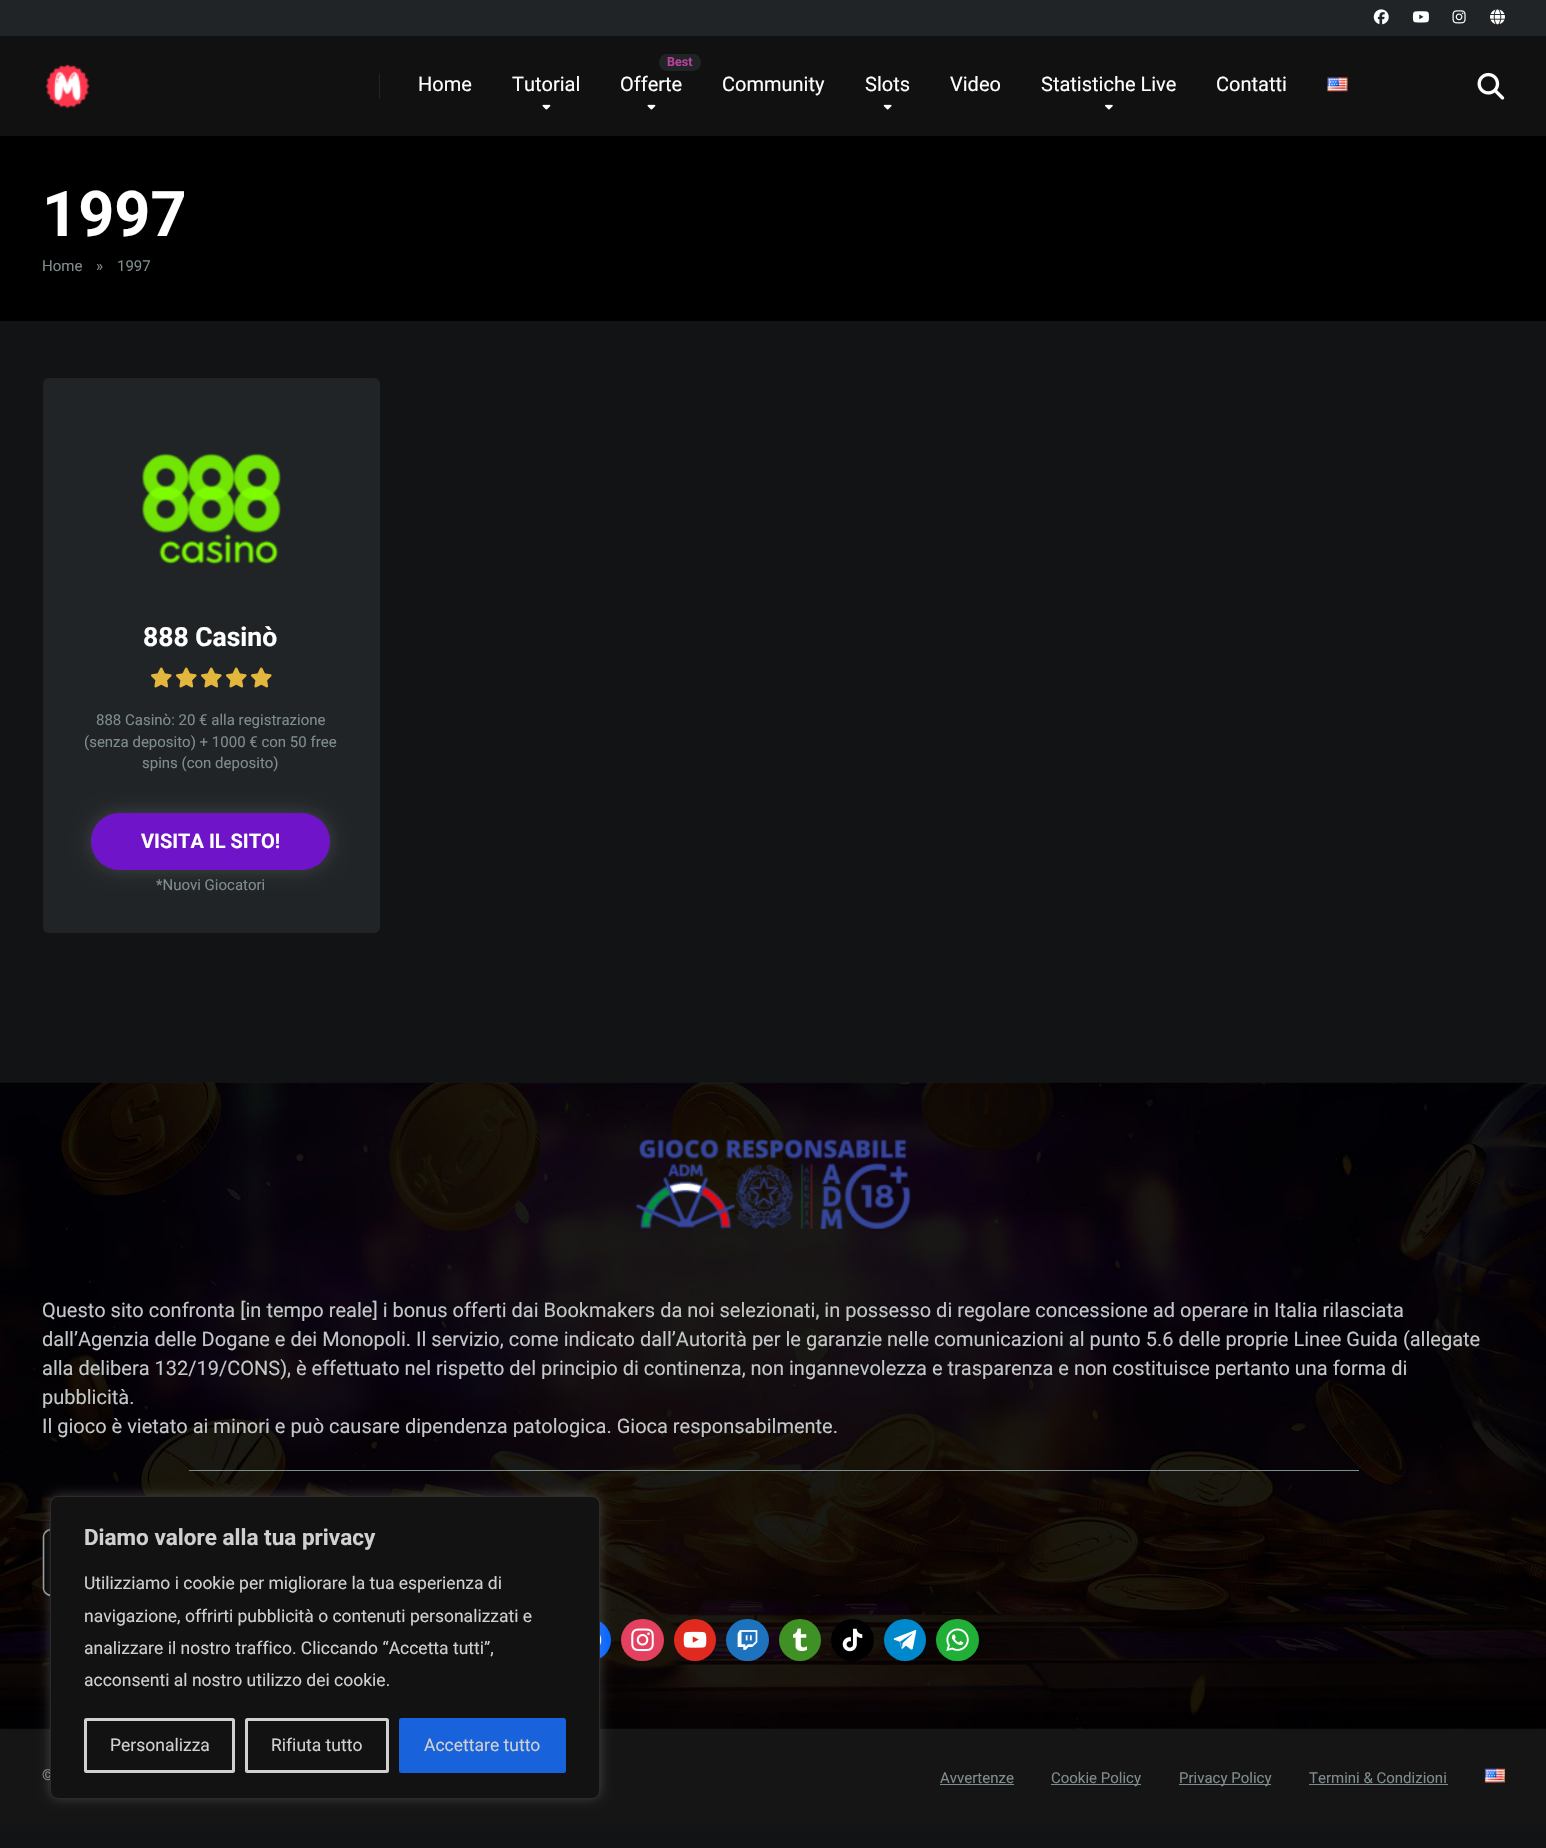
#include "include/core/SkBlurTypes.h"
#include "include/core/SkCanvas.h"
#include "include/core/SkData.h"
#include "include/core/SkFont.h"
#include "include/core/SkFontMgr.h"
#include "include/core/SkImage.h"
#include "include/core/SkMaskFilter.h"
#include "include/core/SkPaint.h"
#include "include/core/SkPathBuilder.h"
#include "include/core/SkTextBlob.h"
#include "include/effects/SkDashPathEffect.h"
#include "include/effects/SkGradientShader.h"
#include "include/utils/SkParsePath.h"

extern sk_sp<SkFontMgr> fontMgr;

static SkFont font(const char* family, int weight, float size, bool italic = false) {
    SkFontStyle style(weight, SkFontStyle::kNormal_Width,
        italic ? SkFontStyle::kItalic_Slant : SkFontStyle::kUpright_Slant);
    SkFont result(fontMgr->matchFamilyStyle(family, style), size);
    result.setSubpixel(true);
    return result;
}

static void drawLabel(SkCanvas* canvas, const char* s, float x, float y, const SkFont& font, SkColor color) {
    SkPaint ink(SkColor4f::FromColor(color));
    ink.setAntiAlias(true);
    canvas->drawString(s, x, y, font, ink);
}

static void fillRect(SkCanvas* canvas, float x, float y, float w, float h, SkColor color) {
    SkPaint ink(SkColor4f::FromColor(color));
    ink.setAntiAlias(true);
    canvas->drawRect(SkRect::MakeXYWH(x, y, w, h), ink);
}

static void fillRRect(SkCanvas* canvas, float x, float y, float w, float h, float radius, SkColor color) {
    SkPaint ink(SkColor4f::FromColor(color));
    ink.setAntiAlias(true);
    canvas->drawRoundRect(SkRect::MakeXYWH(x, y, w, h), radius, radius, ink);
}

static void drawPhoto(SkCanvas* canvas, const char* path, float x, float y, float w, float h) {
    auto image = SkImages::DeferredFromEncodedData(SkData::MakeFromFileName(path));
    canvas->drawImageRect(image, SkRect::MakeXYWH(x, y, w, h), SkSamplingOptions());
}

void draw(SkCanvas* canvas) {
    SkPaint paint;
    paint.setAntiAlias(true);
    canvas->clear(0xFF121315);
    fillRect(canvas, 0, 36, 1546, 100, 0xFF111111);
    fillRect(canvas, 0, 0, 1546, 36, 0xFF202427);
    drawPhoto(canvas, "assets/img1.png", 1373, 9, 16, 16);
    drawPhoto(canvas, "assets/img2.png", 1412, 11, 17, 12);
    drawPhoto(canvas, "assets/img3.png", 1452, 10, 14, 14);
    drawPhoto(canvas, "assets/img4.png", 1490, 9, 15, 16);
    drawPhoto(canvas, "assets/img5.png", 45, 64, 45, 45);
    fillRect(canvas, 379, 74, 1, 25, 0xFF202427);
    SkFont font1 = font("Roboto", 400, 20);
    drawLabel(canvas, "Home", 418, 91, font1, 0xFFFFFFFF);
    drawLabel(canvas, "Tutorial", 512, 91, font1, 0xFFFFFFFF);
    drawPhoto(canvas, "assets/img6.png", 542, 104, 9, 6);
    fillRRect(canvas, 659, 54, 42, 17, 8.5f, 0xFF202427);
    SkFont font2 = font("Roboto", 700, 12.5f);
    drawLabel(canvas, "Best", 667, 66, font2, 0xFFB9419A);
    drawLabel(canvas, "Offerte", 620, 91, font1, 0xFFFFFFFF);
    drawPhoto(canvas, "assets/img6.png", 647, 104, 9, 6);
    drawLabel(canvas, "Community", 722, 91, font1, 0xFFFFFFFF);
    drawLabel(canvas, "Slots", 865, 91, font1, 0xFFFFFFFF);
    drawPhoto(canvas, "assets/img7.png", 883, 104, 9, 6);
    drawLabel(canvas, "Video", 950, 91, font1, 0xFFFFFFFF);
    drawLabel(canvas, "Statistiche Live", 1041, 91, font1, 0xFFFFFFFF);
    drawPhoto(canvas, "assets/img8.png", 1105, 104, 8, 6);
    drawLabel(canvas, "Contatti", 1216, 91, font1, 0xFFFFFFFF);
    drawPhoto(canvas, "assets/img9.png", 1327, 77, 21, 15);
    drawPhoto(canvas, "assets/img10.png", 1477, 72, 28, 28);
    fillRect(canvas, 0, 136, 1546, 185, 0xFF000000);
    SkFont font3 = font("Roboto", 700, 63);
    drawLabel(canvas, "1997", 42, 236, font3, 0xFFFFFFFF);
    SkFont font4 = font("Roboto", 400, 15);
    drawLabel(canvas, "Home", 42, 271, font4, 0xFF7F8C8D);
    drawLabel(canvas, "»", 96, 271, font4, 0xFF7F8C8D);
    drawLabel(canvas, "1997", 117, 271, font4, 0xFF7F8C8D);
    fillRRect(canvas, 43, 378, 337, 555, 6, 0xFF202427);
    drawPhoto(canvas, "assets/img11.png", 142, 453, 139, 112);
    SkFont font5 = font("Roboto", 700, 26.5f);
    drawLabel(canvas, "888 Casinò", 143, 646, font5, 0xFFFFFFFF);
    drawPhoto(canvas, "assets/img12.png", 151, 667, 21, 21);
    drawPhoto(canvas, "assets/img12.png", 176, 667, 21, 21);
    drawPhoto(canvas, "assets/img12.png", 201, 667, 21, 21);
    drawPhoto(canvas, "assets/img12.png", 226, 667, 21, 21);
    drawPhoto(canvas, "assets/img12.png", 251, 667, 21, 21);
    drawLabel(canvas, "888 Casinò: 20 € alla registrazione", 96, 725, font4, 0xFF7F8C8D);
    drawLabel(canvas, "(senza deposito) + 1000 € con 50 free", 84, 747, font4, 0xFF7F8C8D);
    drawLabel(canvas, "spins (con deposito)", 142, 768, font4, 0xFF7F8C8D);
    paint.setColor(0x26FFFFFF);
    paint.setMaskFilter(SkMaskFilter::MakeBlur(kNormal_SkBlurStyle, 9.5f));
    canvas->drawRoundRect(SkRect::MakeXYWH(91, 813, 239, 57), 28.5f, 28.5f, paint);
    paint.setMaskFilter(nullptr);
    fillRRect(canvas, 91, 813, 239, 57, 28.5f, 0xFF6F14C9);
    SkFont font6 = font("Roboto", 700, 20);
    drawLabel(canvas, "VISITA IL SITO!", 141, 848, font6, 0xFFFFFFFF);
    drawLabel(canvas, "*Nuovi Giocatori", 156, 890, font4, 0xFF7F8C8D);
    drawPhoto(canvas, "assets/img13.png", 0, 1082, 1546, 647);
    drawPhoto(canvas, "assets/img14.png", 636, 1139, 275, 90);
    drawLabel(canvas, "Questo sito confronta [in tempo reale] i bonus offerti dai Bookmakers da noi selezionati, in possesso di regolare concessione ad operare in Italia rilasciata", 42, 1317, font1, 0xFFC3C7C8);
    drawLabel(canvas, "dall’Agenzia delle Dogane e dei Monopoli. Il servizio, come indicato dall’Autorità per le garanzie nelle comunicazioni al punto 5.6 delle proprie Linee Guida (allegate", 42, 1346, font1, 0xFFC3C7C8);
    drawLabel(canvas, "alla delibera 132/19/CONS), è effettuato nel rispetto del principio di continenza, non ingannevolezza e trasparenza e non costituisce pertanto una forma di", 42, 1375, font1, 0xFFC3C7C8);
    drawLabel(canvas, "pubblicità.", 42, 1404, font1, 0xFFC3C7C8);
    drawLabel(canvas, "Il gioco è vietato ai minori e può causare dipendenza patologica. Gioca responsabilmente.", 42, 1433, font1, 0xFFC3C7C8);
    fillRect(canvas, 189, 1470, 1170, 1, 0xFF7F8C8D);
    drawPhoto(canvas, "assets/img15.png", 42, 1528, 8, 69);
    paint.setColor(0xFF0866FF);
    canvas->drawCircle(590, 1640, 21, paint);
    drawPhoto(canvas, "assets/img16.png", 600, 1635, 2, 10);
    fillRRect(canvas, 621, 1619, 43, 42, 21, 0xFFE4405F);
    drawPhoto(canvas, "assets/img17.png", 631, 1628, 23, 24);
    paint.setColor(0xFFE02A20);
    canvas->drawCircle(695, 1640, 21, paint);
    drawPhoto(canvas, "assets/img18.png", 683, 1631, 24, 17);
    fillRRect(canvas, 726, 1619, 43, 42, 21, 0xFF1E73BE);
    drawPhoto(canvas, "assets/img19.png", 737, 1630, 21, 20);
    paint.setColor(0xFF409125);
    canvas->drawCircle(800, 1640, 21, paint);
    drawPhoto(canvas, "assets/img20.png", 793, 1628, 14, 24);
    fillRRect(canvas, 831, 1619, 43, 42, 21, 0xFF000000);
    drawPhoto(canvas, "assets/img21.png", 842, 1628, 21, 24);
    paint.setColor(0xFF0088CC);
    canvas->drawCircle(905, 1640, 21, paint);
    drawPhoto(canvas, "assets/img22.png", 893, 1630, 24, 20);
    fillRRect(canvas, 936, 1619, 43, 42, 21, 0xFF20B038);
    drawPhoto(canvas, "assets/img23.png", 946, 1628, 23, 23);
    fillRect(canvas, 0, 1729, 1546, 96, 0xFF151515);
    drawLabel(canvas, "©", 42, 1780, font4, 0xFF7F8C8D);
    drawLabel(canvas, "Avvertenze", 940, 1783, font4, 0xFF7F8C8D);
    fillRect(canvas, 940, 1784, 74, 1, 0xFF7F8C8D);
    fillRect(canvas, 1051, 1784, 90, 1, 0xFF7F8C8D);
    drawLabel(canvas, "Cookie Policy", 1051, 1783, font4, 0xFF7F8C8D);
    fillRect(canvas, 1179, 1784, 92, 1, 0xFF7F8C8D);
    drawLabel(canvas, "Privacy Policy", 1179, 1783, font4, 0xFF7F8C8D);
    drawLabel(canvas, "Termini & Condizioni", 1309, 1783, font4, 0xFF7F8C8D);
    fillRect(canvas, 1309, 1784, 139, 1, 0xFF7F8C8D);
    drawPhoto(canvas, "assets/img24.png", 1484, 1768, 21, 15);
    paint.setColor(0x4DACABAB);
    paint.setMaskFilter(SkMaskFilter::MakeBlur(kNormal_SkBlurStyle, 6));
    canvas->drawRoundRect(SkRect::MakeXYWH(50, 1495, 550, 303), 8, 8, paint);
    paint.setMaskFilter(nullptr);
    paint.setColor(0xFF121212);
    canvas->drawRoundRect(SkRect::MakeXYWH(50.5f, 1496.5f, 549, 302), 7.5f, 7.5f, paint);
    paint.setStroke(true);
    paint.setStrokeWidth(1);
    paint.setColor(0xFF2A2A2A);
    canvas->drawRoundRect(SkRect::MakeXYWH(50.5f, 1496.5f, 549, 302), 7.5f, 7.5f, paint);
    SkFont font7 = font("Roboto", 700, 22.5f);
    drawLabel(canvas, "Diamo valore alla tua privacy", 84, 1545, font7, 0xFFD0D0D0);
    SkFont font8 = font("Roboto", 400, 17.5f);
    drawLabel(canvas, "Utilizziamo i cookie per migliorare la tua esperienza di", 84, 1589, font8, 0xFFD0D0D0);
    drawLabel(canvas, "navigazione, offrirti pubblicità o contenuti personalizzati e", 84, 1622, font8, 0xFFD0D0D0);
    drawLabel(canvas, "analizzare il nostro traffico. Cliccando “Accetta tutti”,", 84, 1654, font8, 0xFFD0D0D0);
    drawLabel(canvas, "acconsenti al nostro utilizzo dei cookie.", 84, 1686, font8, 0xFFD0D0D0);
    paint.setStrokeWidth(3);
    paint.setColor(0xFFD0D0D0);
    canvas->drawRoundRect(SkRect::MakeXYWH(85.5f, 1719.5f, 148, 52), 1, 1, paint);
    drawLabel(canvas, "Personalizza", 110, 1751, font8, 0xFFD0D0D0);
    canvas->drawRoundRect(SkRect::MakeXYWH(246.5f, 1719.5f, 141, 52), 1, 1, paint);
    drawLabel(canvas, "Rifiuta tutto", 271, 1751, font8, 0xFFD0D0D0);
    paint.setStroke(false);
    paint.setColor(0xFF1863DC);
    canvas->drawRoundRect(SkRect::MakeXYWH(400.5f, 1719.5f, 164, 52), 1, 1, paint);
    paint.setStroke(true);
    canvas->drawRoundRect(SkRect::MakeXYWH(400.5f, 1719.5f, 164, 52), 1, 1, paint);
    drawLabel(canvas, "Accettare tutto", 424, 1751, font8, 0xFFD0D0D0);
}
